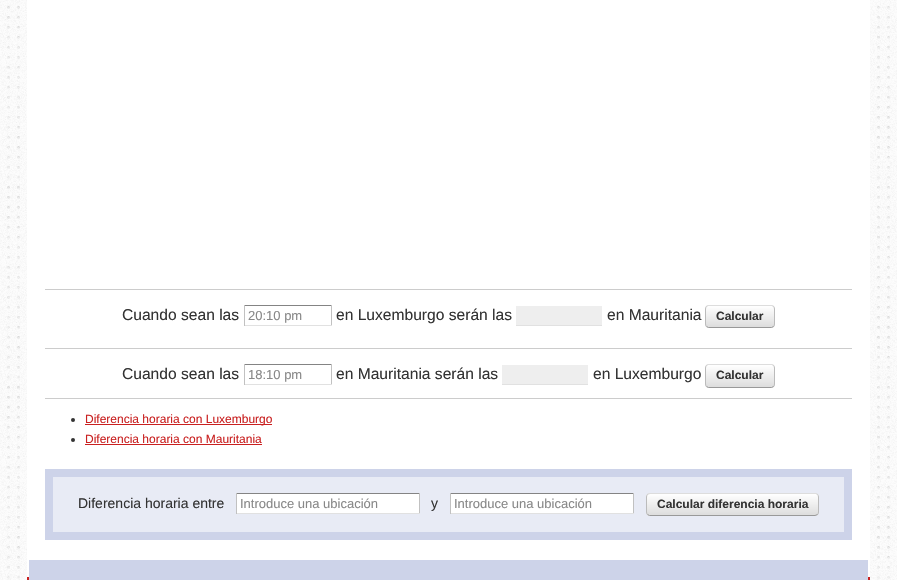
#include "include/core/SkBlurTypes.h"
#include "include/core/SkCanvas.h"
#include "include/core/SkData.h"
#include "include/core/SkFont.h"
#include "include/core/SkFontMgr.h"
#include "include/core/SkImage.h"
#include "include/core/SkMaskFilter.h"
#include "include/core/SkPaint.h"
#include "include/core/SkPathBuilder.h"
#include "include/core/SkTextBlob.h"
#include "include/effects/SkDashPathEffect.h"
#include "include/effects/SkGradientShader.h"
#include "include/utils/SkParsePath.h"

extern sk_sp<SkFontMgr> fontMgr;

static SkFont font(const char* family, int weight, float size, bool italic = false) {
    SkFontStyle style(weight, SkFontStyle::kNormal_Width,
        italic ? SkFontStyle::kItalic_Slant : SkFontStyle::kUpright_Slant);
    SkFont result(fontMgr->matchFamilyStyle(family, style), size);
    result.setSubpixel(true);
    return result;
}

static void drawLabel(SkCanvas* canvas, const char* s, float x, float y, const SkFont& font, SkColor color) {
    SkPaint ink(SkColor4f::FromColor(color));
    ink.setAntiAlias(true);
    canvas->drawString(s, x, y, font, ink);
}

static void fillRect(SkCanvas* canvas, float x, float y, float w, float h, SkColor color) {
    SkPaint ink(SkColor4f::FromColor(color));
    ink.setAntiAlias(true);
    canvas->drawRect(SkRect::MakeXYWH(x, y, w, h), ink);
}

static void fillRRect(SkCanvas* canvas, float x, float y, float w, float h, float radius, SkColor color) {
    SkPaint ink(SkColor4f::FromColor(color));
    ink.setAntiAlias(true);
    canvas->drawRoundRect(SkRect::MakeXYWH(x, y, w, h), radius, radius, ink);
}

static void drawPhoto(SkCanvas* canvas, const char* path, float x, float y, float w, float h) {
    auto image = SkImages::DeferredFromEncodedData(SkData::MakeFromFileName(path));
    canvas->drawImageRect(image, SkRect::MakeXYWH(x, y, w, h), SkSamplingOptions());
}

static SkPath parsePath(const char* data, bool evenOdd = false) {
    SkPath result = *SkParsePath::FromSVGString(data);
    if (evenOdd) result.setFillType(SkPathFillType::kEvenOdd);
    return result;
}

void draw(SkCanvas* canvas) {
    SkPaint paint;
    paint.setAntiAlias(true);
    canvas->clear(0xFFFFFFFF);
    drawPhoto(canvas, "assets/img1.png", 0, 0, 897, 580);
    fillRect(canvas, 27, 0, 843, 577, 0xFFFFFFFF);
    fillRect(canvas, 27, 577, 843, 3, 0xFFC92020);
    fillRect(canvas, 45, 289, 807, 1, 0xFFCCCCCC);
    SkFont font1 = font("Liberation Sans", 400, 15.6f);
    drawLabel(canvas, "Cuando sean las", 122, 320, font1, 0xFF333333);
    fillRect(canvas, 244, 305, 88, 1, 0xFF848484);
    fillRect(canvas, 331, 305, 1, 21, 0xFFC1C1C1);
    fillRect(canvas, 244, 325, 88, 1, 0xFFE1E1E1);
    fillRect(canvas, 244, 305, 1, 21, 0xFFC1C1C1);
    SkFont font2 = font("Liberation Sans", 400, 13);
    drawLabel(canvas, "20:10 pm", 248, 320, font2, 0xFF888888);
    drawLabel(canvas, "en Luxemburgo serán las", 336, 320, font1, 0xFF333333);
    fillRect(canvas, 516, 306, 86, 19, 0xFFEEEEEE);
    fillRect(canvas, 516, 325, 86, 1, 0xFFE1E1E1);
    drawLabel(canvas, "en Mauritania", 607, 320, font1, 0xFF333333);
    fillRRect(canvas, 705, 305, 70, 23, 4, 0xFFDDDDDD);
    canvas->save();
    canvas->clipPath(parsePath("M709 305H771C773 305 775 307 775 309V324C775 326 773 328 771 328H709C707 328 705 326 705 324V309C705 307 707 305 709 305Z"), true);
    {
        const SkColor colors[] = {0xFFFFFFFF, 0xFFDDDDDD};
        const float stops[] = {0, 1};
        const SkPoint ends[] = {{740, 306}, {740, 327}};
        paint.setShader(SkGradientShader::MakeLinear(ends, colors, stops, 2, SkTileMode::kClamp));
        paint.setAlpha(255);
    }
    canvas->drawRect(SkRect::MakeXYWH(705, 306, 70, 21), paint);
    canvas->restore();
    paint.setStroke(true);
    paint.setStrokeWidth(1);
    paint.setShader(nullptr);
    paint.setColor(0xFFDDDDDD);
    canvas->drawPath(parsePath("M706.5 306.5L708.5 305.5H771.5L773.5 306.5"), paint);
    paint.setColor(0xFFBBBBBB);
    canvas->drawPath(parsePath("M773.5 306.5C774 307 774.5 308 774.5 309V324C774.5 325 774 326 773.5 326.5"), paint);
    paint.setColor(0xFF999999);
    canvas->drawPath(parsePath("M773.5 326.5L771.5 327.5H708.5L706.5 326.5"), paint);
    paint.setColor(0xFFBBBBBB);
    canvas->drawPath(parsePath("M706.5 326.5C706 326 705.5 325 705.5 324V309C705.5 308 706 307 706.5 306.5"), paint);
    SkFont font3 = font("Liberation Sans", 700, 12);
    drawLabel(canvas, "Calcular", 716, 320, font3, 0xFF333333);
    fillRect(canvas, 45, 348, 807, 1, 0xFFCCCCCC);
    fillRect(canvas, 45, 398, 807, 1, 0xFFCCCCCC);
    drawLabel(canvas, "Cuando sean las", 122, 379, font1, 0xFF333333);
    fillRect(canvas, 244, 364, 88, 1, 0xFF848484);
    fillRect(canvas, 331, 364, 1, 21, 0xFFC1C1C1);
    fillRect(canvas, 244, 384, 88, 1, 0xFFE1E1E1);
    fillRect(canvas, 244, 364, 1, 21, 0xFFC1C1C1);
    drawLabel(canvas, "18:10 pm", 248, 379, font2, 0xFF888888);
    drawLabel(canvas, "en Mauritania serán las", 336, 379, font1, 0xFF333333);
    fillRect(canvas, 502, 365, 86, 19, 0xFFEEEEEE);
    fillRect(canvas, 502, 384, 86, 1, 0xFFE1E1E1);
    drawLabel(canvas, "en Luxemburgo", 593, 379, font1, 0xFF333333);
    fillRRect(canvas, 705, 364, 70, 24, 4, 0xFFDDDDDD);
    canvas->save();
    canvas->clipPath(parsePath("M709 364H771C773 364 775 366 775 368V384C775 386 773 388 771 388H709C707 388 705 386 705 384V368C705 366 707 364 709 364Z"), true);
    paint.setStroke(false);
    {
        const SkColor colors[] = {0xFFFFFFFF, 0xFFDDDDDD};
        const float stops[] = {0, 1};
        const SkPoint ends[] = {{740, 365}, {740, 387}};
        paint.setShader(SkGradientShader::MakeLinear(ends, colors, stops, 2, SkTileMode::kClamp));
        paint.setAlpha(255);
    }
    canvas->drawRect(SkRect::MakeXYWH(705, 365, 70, 22), paint);
    canvas->restore();
    paint.setStroke(true);
    paint.setShader(nullptr);
    paint.setColor(0xFFDDDDDD);
    canvas->drawPath(parsePath("M706.5 365.5L708.5 364.5H771.5L773.5 365.5"), paint);
    paint.setColor(0xFFBBBBBB);
    canvas->drawPath(parsePath("M773.5 365.5C774 366 774.5 367 774.5 368V384C774.5 385 774 386 773.5 386.5"), paint);
    paint.setColor(0xFF999999);
    canvas->drawPath(parsePath("M773.5 386.5L771.5 387.5H708.5L706.5 386.5"), paint);
    paint.setColor(0xFFBBBBBB);
    canvas->drawPath(parsePath("M706.5 386.5C706 386 705.5 385 705.5 384V368C705.5 367 706 366 706.5 365.5"), paint);
    drawLabel(canvas, "Calcular", 716, 379, font3, 0xFF333333);
    paint.setStroke(false);
    paint.setColor(0xFF333333);
    canvas->drawCircle(73, 420, 2, paint);
    fillRect(canvas, 85, 424, 187, 1, 0xFFC92020);
    SkFont font4 = font("Liberation Sans", 400, 12);
    drawLabel(canvas, "Diferencia horaria con Luxemburgo", 85, 423, font4, 0xFFC92020);
    canvas->drawCircle(73, 440, 2, paint);
    drawLabel(canvas, "Diferencia horaria con Mauritania", 85, 443, font4, 0xFFC92020);
    fillRect(canvas, 85, 444, 177, 1, 0xFFC92020);
    fillRect(canvas, 45, 469, 807, 71, 0xFFCDD3E9);
    fillRect(canvas, 53, 477, 791, 55, 0xFFE8EBF5);
    SkFont font5 = font("Liberation Sans", 400, 14);
    drawLabel(canvas, "Diferencia horaria entre", 78, 508, font5, 0xFF333333);
    fillRect(canvas, 237, 494, 182, 19, 0xFFFFFFFF);
    fillRect(canvas, 236, 493, 184, 1, 0xFF848484);
    fillRect(canvas, 419, 493, 1, 21, 0xFFC1C1C1);
    fillRect(canvas, 236, 513, 184, 1, 0xFFE1E1E1);
    fillRect(canvas, 236, 493, 1, 21, 0xFFC1C1C1);
    drawLabel(canvas, "Introduce una ubicación", 240, 508, font2, 0xFF888888);
    drawLabel(canvas, "y", 431, 508, font5, 0xFF333333);
    fillRect(canvas, 451, 494, 182, 19, 0xFFFFFFFF);
    fillRect(canvas, 450, 493, 184, 1, 0xFF848484);
    fillRect(canvas, 633, 493, 1, 21, 0xFFC1C1C1);
    fillRect(canvas, 450, 513, 184, 1, 0xFFE1E1E1);
    fillRect(canvas, 450, 493, 1, 21, 0xFFC1C1C1);
    drawLabel(canvas, "Introduce una ubicación", 454, 508, font2, 0xFF888888);
    fillRRect(canvas, 646, 493, 173, 23, 4, 0xFFDDDDDD);
    canvas->save();
    canvas->clipPath(parsePath("M650 493H815C817 493 819 495 819 497V512C819 514 817 516 815 516H650C648 516 646 514 646 512V497C646 495 648 493 650 493Z"), true);
    {
        const SkColor colors[] = {0xFFFFFFFF, 0xFFDDDDDD};
        const float stops[] = {0, 1};
        const SkPoint ends[] = {{733, 494}, {733, 515}};
        paint.setShader(SkGradientShader::MakeLinear(ends, colors, stops, 2, SkTileMode::kClamp));
        paint.setAlpha(255);
    }
    canvas->drawRect(SkRect::MakeXYWH(646, 494, 173, 21), paint);
    canvas->restore();
    paint.setStroke(true);
    paint.setShader(nullptr);
    paint.setColor(0xFFDDDDDD);
    canvas->drawPath(parsePath("M647.5 494.5L650 493.5H815.5L817.5 494.5"), paint);
    paint.setColor(0xFFBBBBBB);
    canvas->drawPath(parsePath("M817.5 494.5C818 495 818.5 496 818.5 497V512C818.5 513 818 514 817.5 514.5"), paint);
    paint.setColor(0xFF999999);
    canvas->drawPath(parsePath("M817.5 514.5L815 515.5H649.5L647.5 514.5"), paint);
    paint.setColor(0xFFBBBBBB);
    canvas->drawPath(parsePath("M647.5 514.5C647 514 646.5 513 646.5 512V497C646.5 496 647 495 647.5 494.5"), paint);
    drawLabel(canvas, "Calcular diferencia horaria", 657, 508, font3, 0xFF333333);
    fillRect(canvas, 29, 560, 839, 20, 0xFFCDD3E9);
}
